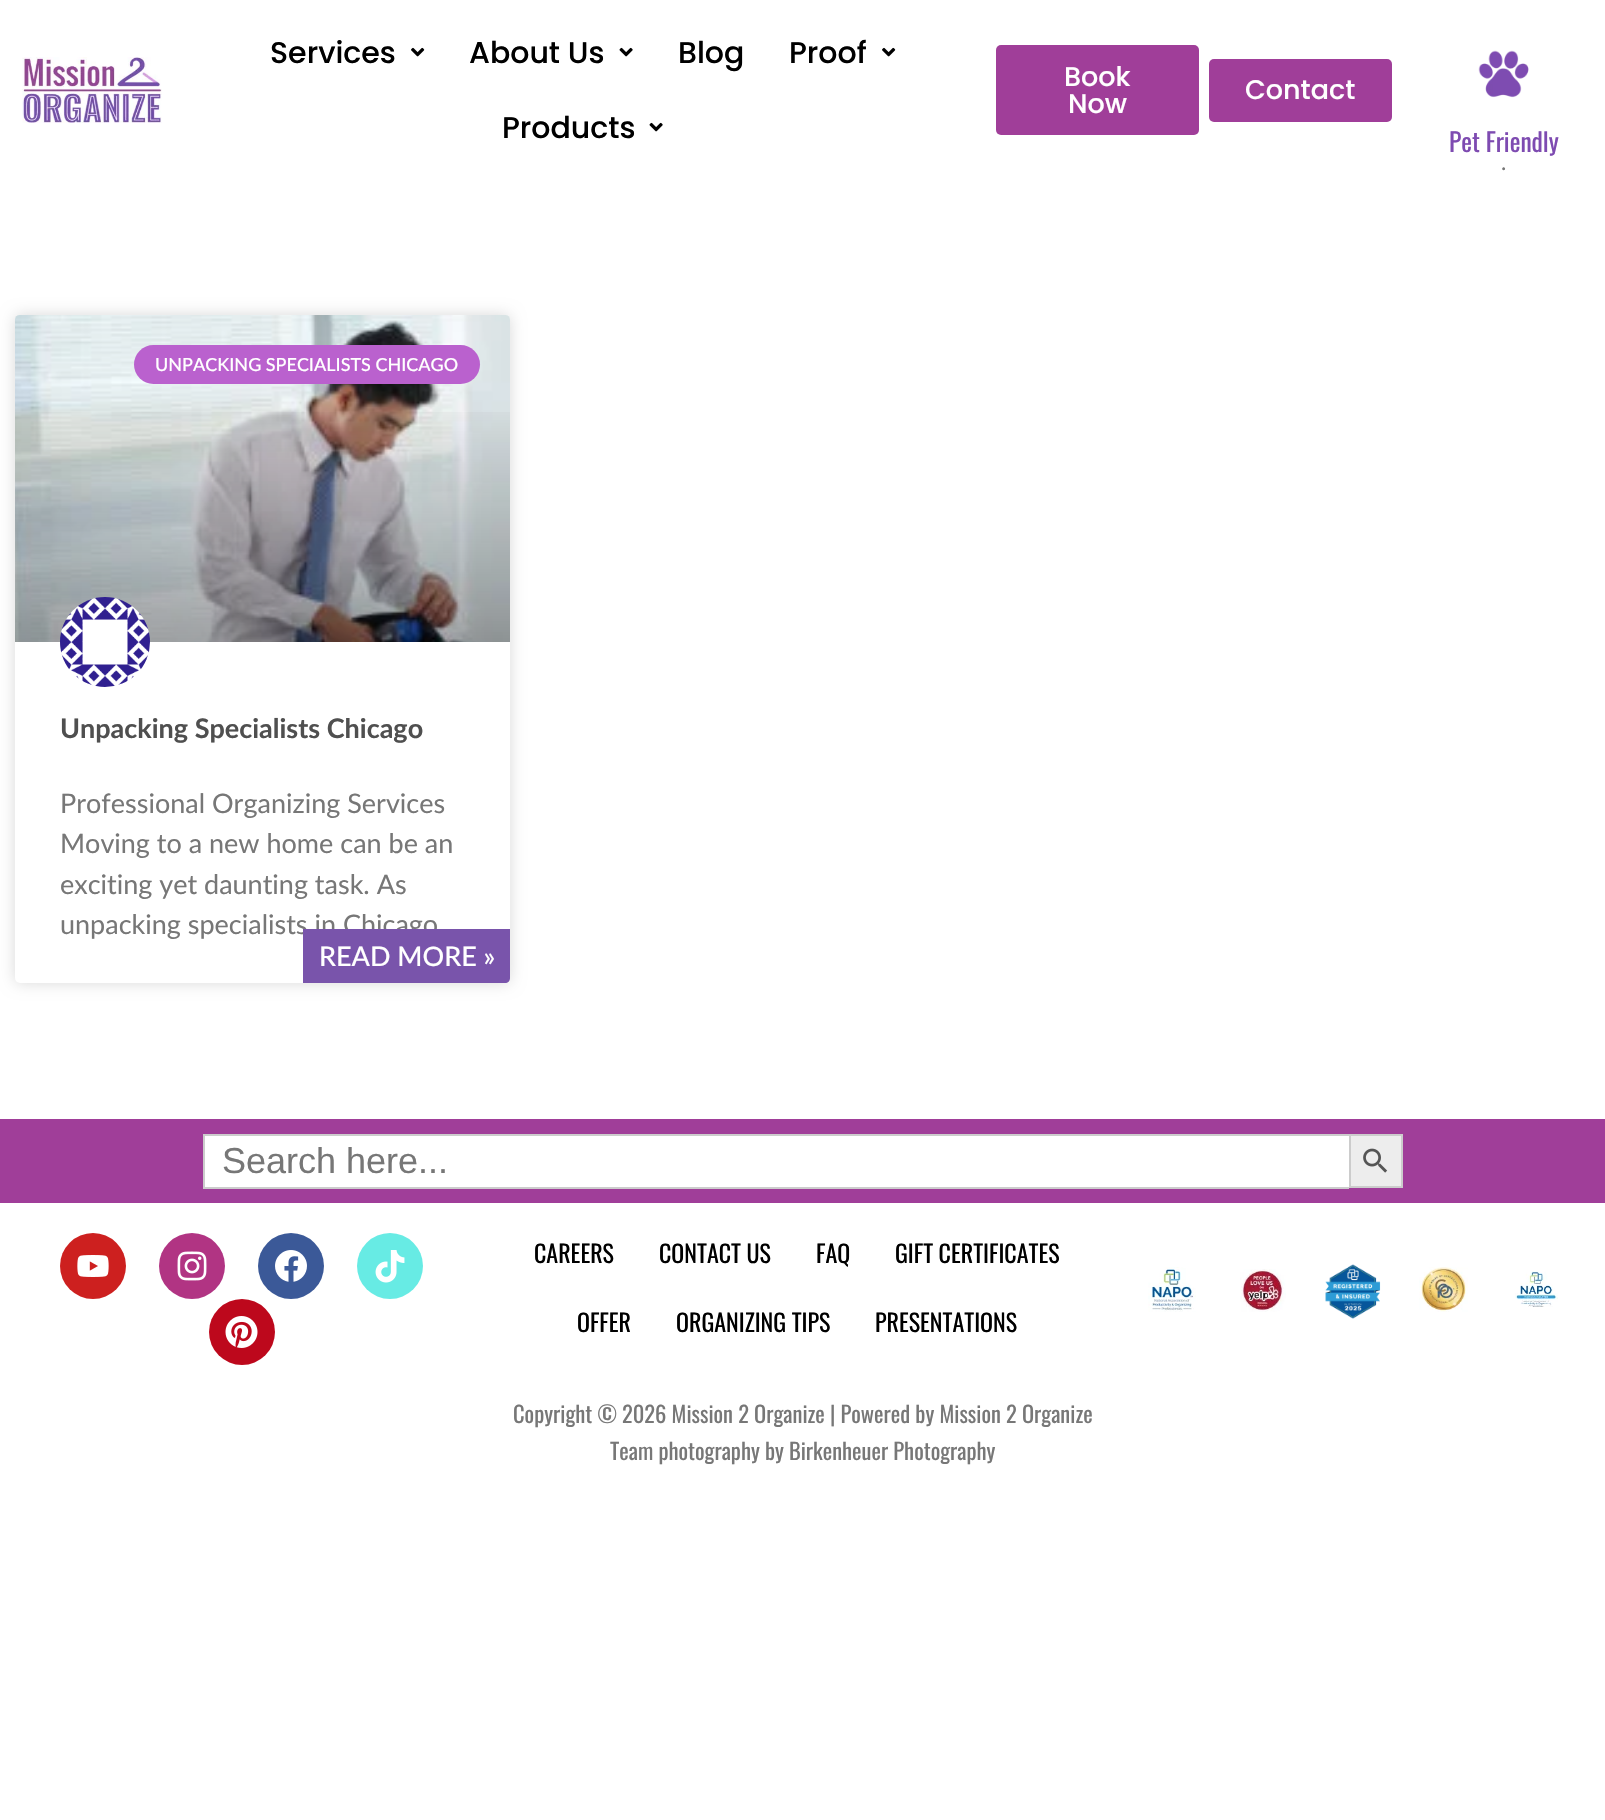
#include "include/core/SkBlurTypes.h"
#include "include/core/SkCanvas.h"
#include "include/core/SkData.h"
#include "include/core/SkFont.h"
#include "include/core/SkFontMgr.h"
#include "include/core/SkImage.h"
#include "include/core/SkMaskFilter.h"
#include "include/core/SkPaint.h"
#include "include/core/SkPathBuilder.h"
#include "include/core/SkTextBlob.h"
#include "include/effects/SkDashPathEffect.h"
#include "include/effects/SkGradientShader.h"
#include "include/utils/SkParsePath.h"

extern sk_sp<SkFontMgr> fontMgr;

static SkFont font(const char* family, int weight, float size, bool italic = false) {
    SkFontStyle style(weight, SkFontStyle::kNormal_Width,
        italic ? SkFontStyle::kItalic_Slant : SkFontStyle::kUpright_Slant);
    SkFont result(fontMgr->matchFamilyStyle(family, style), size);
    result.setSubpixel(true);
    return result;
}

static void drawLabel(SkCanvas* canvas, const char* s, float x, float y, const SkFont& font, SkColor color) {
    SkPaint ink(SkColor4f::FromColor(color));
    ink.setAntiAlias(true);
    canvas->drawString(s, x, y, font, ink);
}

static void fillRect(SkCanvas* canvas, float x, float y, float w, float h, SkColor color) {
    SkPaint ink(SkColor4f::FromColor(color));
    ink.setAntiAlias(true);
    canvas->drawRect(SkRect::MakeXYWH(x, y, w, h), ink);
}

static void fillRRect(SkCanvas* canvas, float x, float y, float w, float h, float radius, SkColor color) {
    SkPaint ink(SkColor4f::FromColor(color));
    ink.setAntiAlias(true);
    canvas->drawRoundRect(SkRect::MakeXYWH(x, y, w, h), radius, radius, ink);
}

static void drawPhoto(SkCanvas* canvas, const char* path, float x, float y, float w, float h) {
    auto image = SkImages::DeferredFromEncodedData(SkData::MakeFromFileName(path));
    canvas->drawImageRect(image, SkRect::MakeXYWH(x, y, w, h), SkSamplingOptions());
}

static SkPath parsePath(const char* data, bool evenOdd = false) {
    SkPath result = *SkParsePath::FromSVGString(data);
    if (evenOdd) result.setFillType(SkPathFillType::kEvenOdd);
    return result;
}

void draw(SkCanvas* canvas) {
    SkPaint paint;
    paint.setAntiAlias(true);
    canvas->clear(0xFFFFFFFF);
    drawPhoto(canvas, "assets/img1.png", 22, 57, 140, 66);
    SkFont font1 = font("Poppins", 500, 30);
    drawLabel(canvas, "Services", 270, 63, font1, 0xFF000000);
    drawPhoto(canvas, "assets/img2.png", 411, 47, 14, 10);
    drawLabel(canvas, "About Us", 469, 63, font1, 0xFF000000);
    drawPhoto(canvas, "assets/img3.png", 619, 47, 14, 10);
    drawLabel(canvas, "Blog", 678, 63, font1, 0xFF000000);
    drawLabel(canvas, "Proof", 789, 63, font1, 0xFF000000);
    drawPhoto(canvas, "assets/img2.png", 882, 47, 14, 10);
    drawLabel(canvas, "Products", 502, 138, font1, 0xFF000000);
    drawPhoto(canvas, "assets/img3.png", 649, 122, 14, 10);
    fillRRect(canvas, 996, 45, 203, 90, 5, 0xFFA03E99);
    SkFont font2 = font("Poppins", 500, 27);
    drawLabel(canvas, "Book", 1064, 86, font2, 0xFFFFFFFF);
    drawLabel(canvas, "Now", 1068, 113, font2, 0xFFFFFFFF);
    fillRRect(canvas, 1209, 59, 183, 63, 5, 0xFFA03E99);
    drawLabel(canvas, "Contact", 1245, 99, font2, 0xFFFFFFFF);
    drawPhoto(canvas, "assets/img4.png", 1478, 50, 51, 48);
    SkFont font3 = font("Oswald", 400, 25.5f);
    drawLabel(canvas, "Pet Friendly", 1449, 152, font3, 0xFF7E4BB1);
    SkFont font4 = font("Lato", 400, 22.5f);
    drawLabel(canvas, ".", 1501, 170, font4, 0xFF777777);
    paint.setColor(0x26000000);
    paint.setMaskFilter(SkMaskFilter::MakeBlur(kNormal_SkBlurStyle, 7.5f));
    canvas->drawRoundRect(SkRect::MakeXYWH(15, 315, 495, 668), 5, 5, paint);
    paint.setMaskFilter(nullptr);
    fillRRect(canvas, 15, 315, 495, 668, 5, 0xFFFFFFFF);
    drawPhoto(canvas, "assets/img5.png", 15, 315, 495, 327);
    {
        const SkColor colors[] = {0x59000000, 0x00000000};
        const float stops[] = {0, 0.75f};
        const SkPoint ends[] = {{263, 642}, {263, 315}};
        paint.setShader(SkGradientShader::MakeLinear(ends, colors, stops, 2, SkTileMode::kClamp));
        paint.setAlpha(255);
    }
    canvas->drawRect(SkRect::MakeXYWH(15, 412, 495, 230), paint);
    fillRRect(canvas, 134, 345, 346, 39, 19.5f, 0xFFBA61CE);
    SkFont font5 = font("Lato", 500, 18);
    drawLabel(canvas, "UNPACKING SPECIALISTS CHICAGO", 155, 371, font5, 0xFFFFFFFF);
    drawPhoto(canvas, "assets/img6.png", 60, 597, 90, 90);
    SkFont font6 = font("Lato", 700, 27);
    drawLabel(canvas, "Unpacking Specialists Chicago", 60, 738, font6, 0xFF4F4F4F);
    SkFont font7 = font("Lato", 400, 27);
    drawLabel(canvas, "Professional Organizing Services", 60, 813, font7, 0xFF777777);
    drawLabel(canvas, "Moving to a new home can be an", 60, 853, font7, 0xFF777777);
    drawLabel(canvas, "exciting yet daunting task. As", 60, 894, font7, 0xFF777777);
    drawLabel(canvas, "unpacking specialists in Chicago", 60, 934, font7, 0xFF777777);
    paint.setShader(nullptr);
    paint.setColor(0xFF7954AB);
    canvas->drawPath(parsePath("M303 929H510V978C510 981 508 983 505 983H303Z"), paint);
    SkFont font8 = font("Lato", 500, 27);
    drawLabel(canvas, "READ MORE »", 319, 966, font8, 0xFFFFFFFF);
    fillRect(canvas, 0, 1119, 1605, 84, 0xFFA03E99);
    fillRect(canvas, 205, 1136, 1144, 51, 0xFFFFFFFF);
    fillRect(canvas, 203, 1134, 1146, 2, 0xFFCCCCCC);
    fillRect(canvas, 203, 1187, 1146, 2, 0xFFCCCCCC);
    fillRect(canvas, 203, 1134, 2, 54, 0xFFCCCCCC);
    SkFont font9 = font("Liberation Sans", 400, 36);
    drawLabel(canvas, "Search here...", 222, 1173, font9, 0xFF777777);
    paint.setColor(0xFFEDEDED);
    canvas->drawRect(SkRect::MakeXYWH(1350, 1135, 52, 52), paint);
    paint.setStroke(true);
    paint.setStrokeWidth(2);
    paint.setColor(0xFFCCCCCC);
    canvas->drawRect(SkRect::MakeXYWH(1350, 1135, 52, 52), paint);
    drawPhoto(canvas, "assets/img7.png", 1363, 1148, 25, 25);
    paint.setStroke(false);
    paint.setColor(0xFFCD201F);
    canvas->drawCircle(93, 1266, 33, paint);
    drawPhoto(canvas, "assets/img8.png", 77, 1255, 32, 22);
    paint.setColor(0xFFB13483);
    canvas->drawCircle(192, 1266, 33, paint);
    drawPhoto(canvas, "assets/img9.png", 177, 1251, 30, 30);
    paint.setColor(0xFF3B5998);
    canvas->drawCircle(291, 1266, 33, paint);
    drawPhoto(canvas, "assets/img10.png", 275, 1250, 32, 32);
    paint.setColor(0xFF67EBE4);
    canvas->drawCircle(390, 1266, 33, paint);
    drawPhoto(canvas, "assets/img11.png", 375, 1250, 30, 33);
    paint.setColor(0xFFBD081C);
    canvas->drawCircle(242, 1332, 33, paint);
    drawPhoto(canvas, "assets/img12.png", 225, 1316, 33, 32);
    SkFont font10 = font("Oswald", 400, 24);
    drawLabel(canvas, "CAREERS", 534, 1263, font10, 0xFF000000);
    drawLabel(canvas, "CONTACT US", 659, 1263, font10, 0xFF000000);
    drawLabel(canvas, "FAQ", 816, 1263, font10, 0xFF000000);
    drawLabel(canvas, "GIFT CERTIFICATES", 895, 1263, font10, 0xFF000000);
    drawLabel(canvas, "OFFER", 577, 1332, font10, 0xFF000000);
    drawLabel(canvas, "ORGANIZING TIPS", 676, 1332, font10, 0xFF000000);
    drawLabel(canvas, "PRESENTATIONS", 875, 1332, font10, 0xFF000000);
    drawPhoto(canvas, "assets/img13.png", 1148, 1267, 48, 45);
    drawPhoto(canvas, "assets/img14.png", 1240, 1269, 46, 43);
    drawPhoto(canvas, "assets/img15.png", 1325, 1264, 56, 55);
    drawPhoto(canvas, "assets/img16.png", 1419, 1267, 49, 45);
    drawPhoto(canvas, "assets/img17.png", 1515, 1271, 43, 36);
    SkFont font11 = font("Oswald", 400, 22.5f);
    drawLabel(canvas, "Copyright © 2026 Mission 2 Organize | Powered by Mission 2 Organize", 513, 1423, font11, 0xFF777777);
    drawLabel(canvas, "Team photography by Birkenheuer Photography", 610, 1460, font11, 0xFF777777);
}
